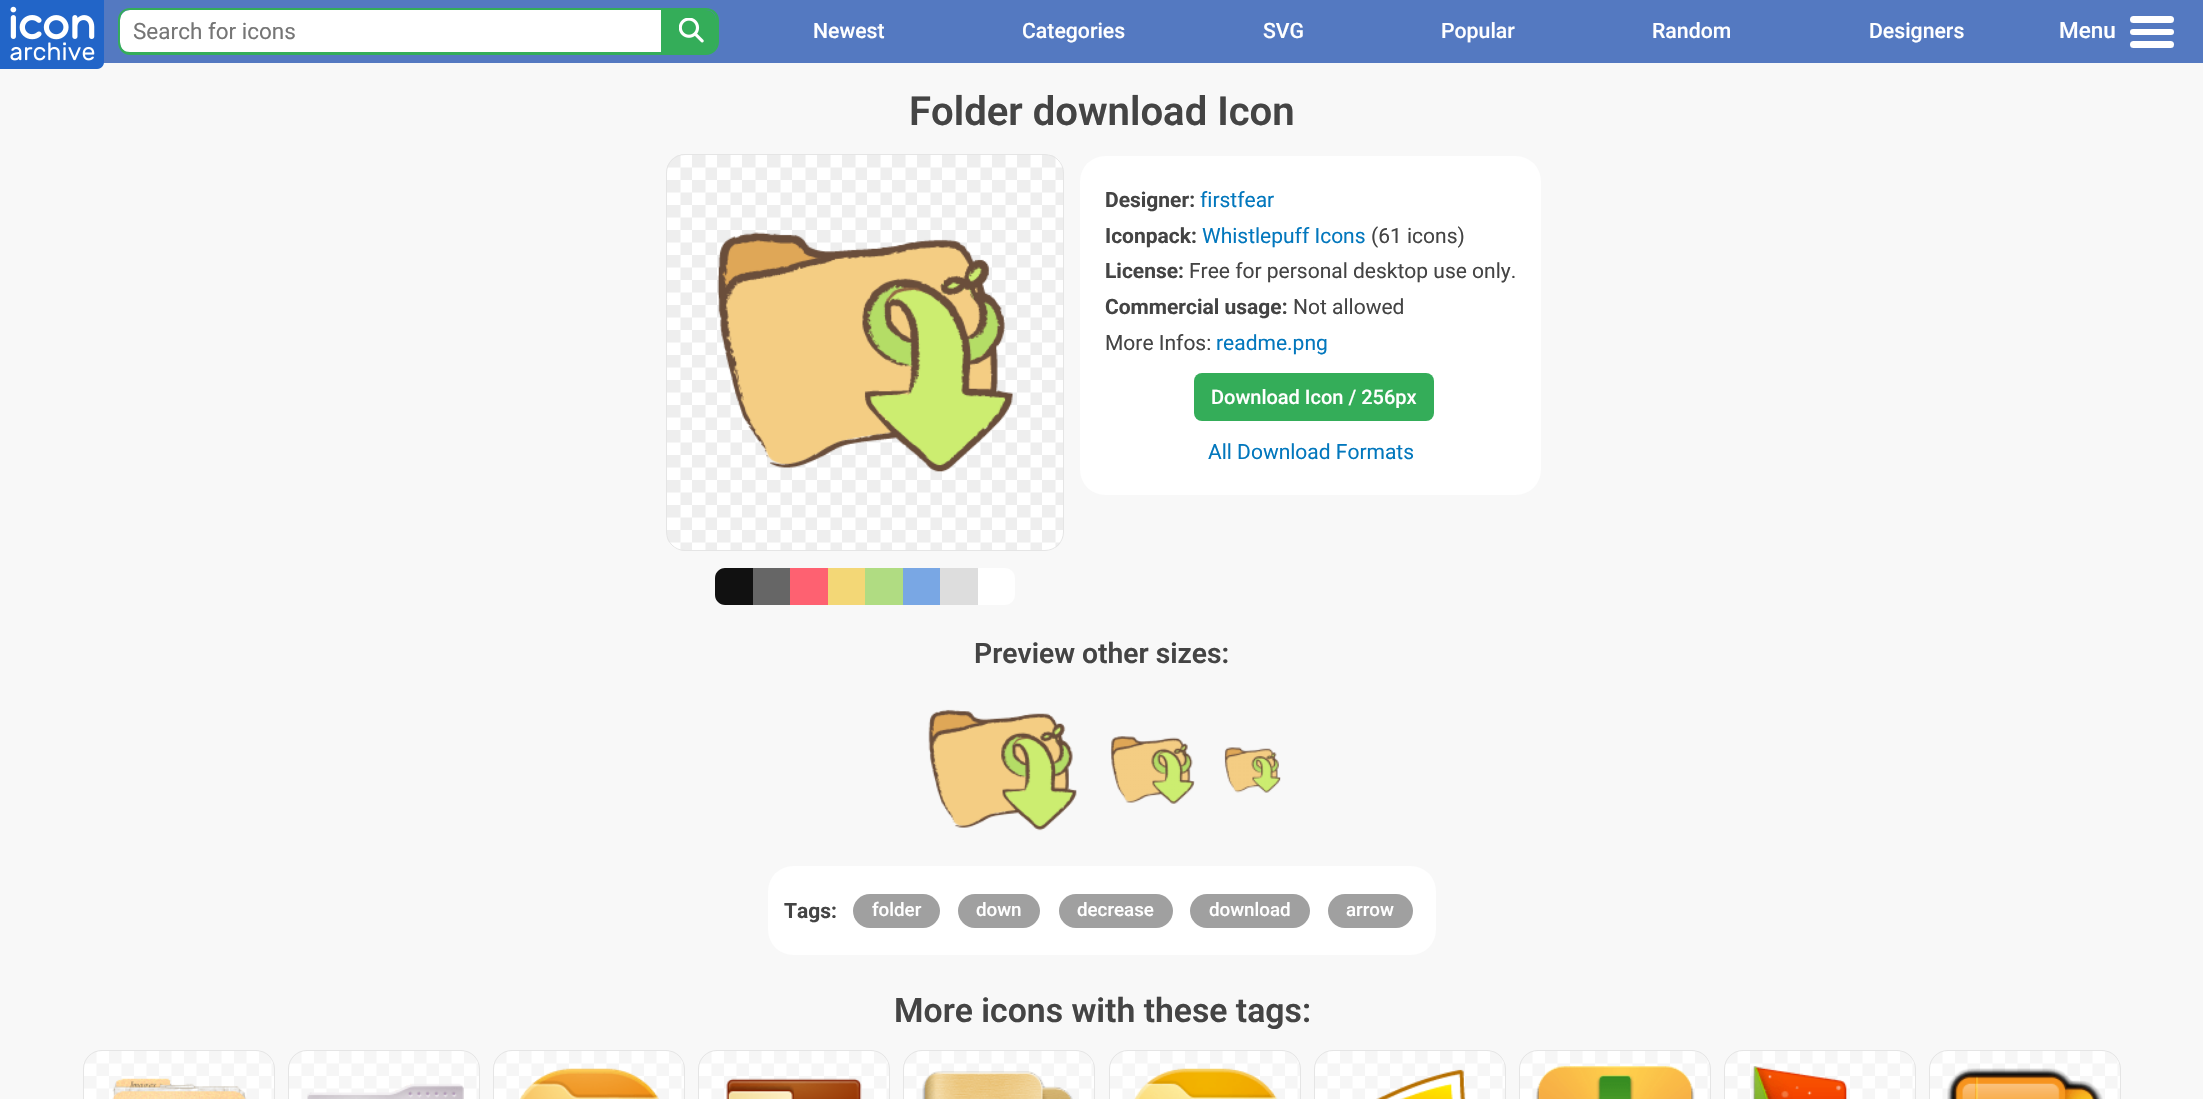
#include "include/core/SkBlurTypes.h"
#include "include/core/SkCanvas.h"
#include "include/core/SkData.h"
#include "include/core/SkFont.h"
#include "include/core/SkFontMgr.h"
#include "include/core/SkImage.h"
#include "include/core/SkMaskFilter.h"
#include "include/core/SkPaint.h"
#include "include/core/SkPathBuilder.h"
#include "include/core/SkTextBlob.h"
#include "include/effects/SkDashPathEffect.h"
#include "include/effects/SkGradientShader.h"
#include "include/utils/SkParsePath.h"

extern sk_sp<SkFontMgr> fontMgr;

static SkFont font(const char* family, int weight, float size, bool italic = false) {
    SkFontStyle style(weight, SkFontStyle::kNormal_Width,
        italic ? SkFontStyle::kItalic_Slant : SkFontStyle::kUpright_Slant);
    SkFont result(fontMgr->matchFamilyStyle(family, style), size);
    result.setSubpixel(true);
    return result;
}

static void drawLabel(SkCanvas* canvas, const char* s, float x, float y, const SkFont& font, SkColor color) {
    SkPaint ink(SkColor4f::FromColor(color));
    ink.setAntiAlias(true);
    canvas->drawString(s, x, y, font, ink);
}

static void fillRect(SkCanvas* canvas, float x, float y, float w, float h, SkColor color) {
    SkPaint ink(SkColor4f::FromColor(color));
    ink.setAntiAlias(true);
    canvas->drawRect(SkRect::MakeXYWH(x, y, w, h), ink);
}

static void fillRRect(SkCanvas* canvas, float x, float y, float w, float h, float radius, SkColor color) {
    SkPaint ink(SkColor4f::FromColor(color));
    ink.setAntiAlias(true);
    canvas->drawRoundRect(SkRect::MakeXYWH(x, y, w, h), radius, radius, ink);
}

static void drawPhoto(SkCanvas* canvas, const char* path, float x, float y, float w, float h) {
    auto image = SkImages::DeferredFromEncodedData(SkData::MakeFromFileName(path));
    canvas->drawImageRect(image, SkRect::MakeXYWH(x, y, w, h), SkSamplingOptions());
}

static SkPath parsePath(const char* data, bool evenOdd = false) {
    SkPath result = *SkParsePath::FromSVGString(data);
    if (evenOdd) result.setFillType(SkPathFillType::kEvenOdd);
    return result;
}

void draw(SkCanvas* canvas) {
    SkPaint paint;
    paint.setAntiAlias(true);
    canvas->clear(0xFFF8F8F8);
    fillRect(canvas, 103, 0, 2100, 63, 0xFF5479C1);
    drawPhoto(canvas, "assets/img1.png", 0, 0, 104, 69);
    paint.setColor(0xFFFFFFFF);
    canvas->drawPath(parsePath("M130 10H661V53H130C124.5 53 120 48.5 120 43V20C120 14.5 124.5 10 130 10Z"), paint);
    paint.setColor(0xFF34AD59);
    canvas->drawPath(parsePath("M130 8H661V55H130C123 55 118 49 118 42V20C118 13 123 8 130 8ZM130 10H661V52H130C118 52 120 39 120 31C120 23 118 10 130 10Z", true), paint);
    SkFont font1 = font("Roboto", 400, 22.5f);
    drawLabel(canvas, "Search for icons", 133, 39, font1, 0xFF757575);
    canvas->drawPath(parsePath("M661 10H706C711.5 10 716 14.5 716 20V43C716 48.5 711.5 53 706 53H661Z"), paint);
    canvas->drawPath(parsePath("M661 8H706C713 8 719 13 719 20V42C719 49 713 55 706 55H661ZM661 10H706C712 10 716 14 716 20V42C716 48 712 52 706 52H661Z", true), paint);
    drawPhoto(canvas, "assets/img2.png", 679, 18, 25, 25);
    SkFont font2 = font("Roboto", 500, 21.25f);
    drawLabel(canvas, "Newest", 813, 38, font2, 0xFFFFFFFF);
    drawLabel(canvas, "Categories", 1022, 38, font2, 0xFFFFFFFF);
    drawLabel(canvas, "SVG", 1263, 38, font2, 0xFFFFFFFF);
    drawLabel(canvas, "Popular", 1441, 38, font2, 0xFFFFFFFF);
    drawLabel(canvas, "Random", 1652, 38, font2, 0xFFFFFFFF);
    drawLabel(canvas, "Designers", 1869, 38, font2, 0xFFFFFFFF);
    SkFont font3 = font("Roboto", 500, 22.5f);
    drawLabel(canvas, "Menu", 2059, 38, font3, 0xFFFFFFFF);
    fillRRect(canvas, 2130, 16, 44, 7, 3.5f, 0xFFFFFFFF);
    fillRRect(canvas, 2130, 29, 44, 6, 3, 0xFFFFFFFF);
    fillRRect(canvas, 2130, 41, 44, 7, 3.5f, 0xFFFFFFFF);
    SkFont font4 = font("Roboto", 600, 40.1f);
    drawLabel(canvas, "Folder download Icon", 909, 125, font4, 0xFF444444);
    drawPhoto(canvas, "assets/img3.png", 666, 154, 398, 397);
    paint.setStroke(true);
    paint.setStrokeWidth(1);
    paint.setColor(0xFFE5E5E5);
    canvas->drawRoundRect(SkRect::MakeXYWH(666.5f, 154.5f, 397, 396), 18.5f, 18.5f, paint);
    drawPhoto(canvas, "assets/img4.png", 717, 232, 296, 240);
    paint.setStroke(false);
    paint.setColor(0xFF111111);
    canvas->drawPath(parsePath("M725 568H753V605H725C719.5 605 715 600.5 715 595V578C715 572.5 719.5 568 725 568Z"), paint);
    fillRect(canvas, 753, 568, 37, 37, 0xFF666666);
    fillRect(canvas, 790, 568, 38, 37, 0xFFFE6171);
    fillRect(canvas, 828, 568, 37, 37, 0xFFF3D776);
    fillRect(canvas, 865, 568, 38, 37, 0xFFB0DC82);
    fillRect(canvas, 903, 568, 37, 37, 0xFF79A7E4);
    fillRect(canvas, 940, 568, 38, 37, 0xFFDDDDDD);
    paint.setColor(0xFFFFFFFF);
    canvas->drawPath(parsePath("M978 568H1005C1010.5 568 1015 572.5 1015 578V595C1015 600.5 1010.5 605 1005 605H978Z"), paint);
    fillRRect(canvas, 1080, 156, 461, 339, 25, 0xFFFFFFFF);
    SkFont font5 = font("Roboto", 700, 21);
    drawLabel(canvas, "Designer:", 1105, 207, font5, 0xFF444444);
    SkFont font6 = font("Roboto", 400, 21);
    drawLabel(canvas, "firstfear", 1200, 207, font6, 0xFF0277BD);
    drawLabel(canvas, "Iconpack:", 1105, 243, font5, 0xFF444444);
    drawLabel(canvas, "Whistlepuff Icons", 1202, 243, font6, 0xFF0277BD);
    drawLabel(canvas, "(61 icons)", 1371, 243, font6, 0xFF444444);
    drawLabel(canvas, "License:", 1105, 278, font5, 0xFF444444);
    drawLabel(canvas, "Free for personal desktop use only.", 1189, 278, font6, 0xFF444444);
    drawLabel(canvas, "Commercial usage:", 1105, 314, font5, 0xFF444444);
    drawLabel(canvas, "Not allowed", 1293, 314, font6, 0xFF444444);
    drawLabel(canvas, "More Infos:", 1105, 350, font6, 0xFF444444);
    drawLabel(canvas, "readme.png", 1216, 350, font6, 0xFF0277BD);
    fillRRect(canvas, 1194, 373, 240, 48, 8, 0xFF34AD59);
    SkFont font7 = font("Roboto", 500, 20);
    drawLabel(canvas, "Download Icon / 256px", 1211, 404, font7, 0xFFFFFFFF);
    drawLabel(canvas, "All Download Formats", 1208, 459, font6, 0xFF0277BD);
    SkFont font8 = font("Roboto", 600, 28.25f);
    drawLabel(canvas, "Preview other sizes:", 974, 663, font8, 0xFF444444);
    drawPhoto(canvas, "assets/img5.png", 928, 709, 149, 122);
    drawPhoto(canvas, "assets/img6.png", 1110, 736, 85, 68);
    drawPhoto(canvas, "assets/img7.png", 1224, 747, 57, 46);
    fillRRect(canvas, 768, 866, 668, 89, 25, 0xFFFFFFFF);
    drawLabel(canvas, "Tags:", 784, 918, font5, 0xFF444444);
    fillRRect(canvas, 853, 894, 87, 34, 17, 0xFFA0A0A0);
    SkFont font9 = font("Roboto", 500, 18.75f);
    drawLabel(canvas, "folder", 872, 916, font9, 0xFFFFFFFF);
    fillRRect(canvas, 958, 894, 82, 34, 17, 0xFFA0A0A0);
    drawLabel(canvas, "down", 976, 916, font9, 0xFFFFFFFF);
    fillRRect(canvas, 1059, 894, 114, 34, 17, 0xFFA0A0A0);
    drawLabel(canvas, "decrease", 1077, 916, font9, 0xFFFFFFFF);
    fillRRect(canvas, 1190, 894, 120, 34, 17, 0xFFA0A0A0);
    drawLabel(canvas, "download", 1209, 916, font9, 0xFFFFFFFF);
    fillRRect(canvas, 1328, 894, 85, 34, 17, 0xFFA0A0A0);
    drawLabel(canvas, "arrow", 1346, 916, font9, 0xFFFFFFFF);
    SkFont font10 = font("Roboto", 600, 33.75f);
    drawLabel(canvas, "More icons with these tags:", 894, 1022, font10, 0xFF444444);
    drawPhoto(canvas, "assets/img8.png", 83, 1050, 192, 49);
    paint.setStroke(true);
    paint.setColor(0xFFE5E5E5);
    canvas->drawRoundRect(SkRect::MakeXYWH(83.5f, 1050.5f, 191, 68), 18.5f, 18.5f, paint);
    drawPhoto(canvas, "assets/img9.png", 112, 1078, 135, 21);
    drawPhoto(canvas, "assets/img8.png", 288, 1050, 192, 49);
    canvas->drawRoundRect(SkRect::MakeXYWH(288.5f, 1050.5f, 191, 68), 18.5f, 18.5f, paint);
    drawPhoto(canvas, "assets/img10.png", 307, 1083, 157, 16);
    drawPhoto(canvas, "assets/img11.png", 493, 1050, 192, 49);
    canvas->drawRoundRect(SkRect::MakeXYWH(493.5f, 1050.5f, 191, 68), 18.5f, 18.5f, paint);
    drawPhoto(canvas, "assets/img12.png", 519, 1068, 140, 31);
    drawPhoto(canvas, "assets/img8.png", 698, 1050, 192, 49);
    canvas->drawRoundRect(SkRect::MakeXYWH(698.5f, 1050.5f, 191, 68), 18.5f, 18.5f, paint);
    drawPhoto(canvas, "assets/img13.png", 726, 1078, 136, 21);
    drawPhoto(canvas, "assets/img8.png", 903, 1050, 192, 49);
    canvas->drawRoundRect(SkRect::MakeXYWH(903.5f, 1050.5f, 191, 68), 18.5f, 18.5f, paint);
    drawPhoto(canvas, "assets/img14.png", 922, 1071, 151, 28);
    drawPhoto(canvas, "assets/img15.png", 1109, 1050, 192, 49);
    canvas->drawRoundRect(SkRect::MakeXYWH(1109.5f, 1050.5f, 191, 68), 18.5f, 18.5f, paint);
    drawPhoto(canvas, "assets/img16.png", 1134, 1068, 144, 31);
    drawPhoto(canvas, "assets/img15.png", 1314, 1050, 192, 49);
    canvas->drawRoundRect(SkRect::MakeXYWH(1314.5f, 1050.5f, 191, 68), 18.5f, 18.5f, paint);
    drawPhoto(canvas, "assets/img17.png", 1376, 1069, 90, 30);
    drawPhoto(canvas, "assets/img18.png", 1519, 1050, 192, 49);
    canvas->drawRoundRect(SkRect::MakeXYWH(1519.5f, 1050.5f, 191, 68), 18.5f, 18.5f, paint);
    drawPhoto(canvas, "assets/img19.png", 1536, 1066, 158, 33);
    drawPhoto(canvas, "assets/img15.png", 1724, 1050, 192, 49);
    canvas->drawRoundRect(SkRect::MakeXYWH(1724.5f, 1050.5f, 191, 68), 18.5f, 18.5f, paint);
    drawPhoto(canvas, "assets/img20.png", 1751, 1066, 96, 33);
    drawPhoto(canvas, "assets/img15.png", 1929, 1050, 192, 49);
    canvas->drawRoundRect(SkRect::MakeXYWH(1929.5f, 1050.5f, 191, 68), 18.5f, 18.5f, paint);
    drawPhoto(canvas, "assets/img21.png", 1947, 1068, 156, 31);
}
